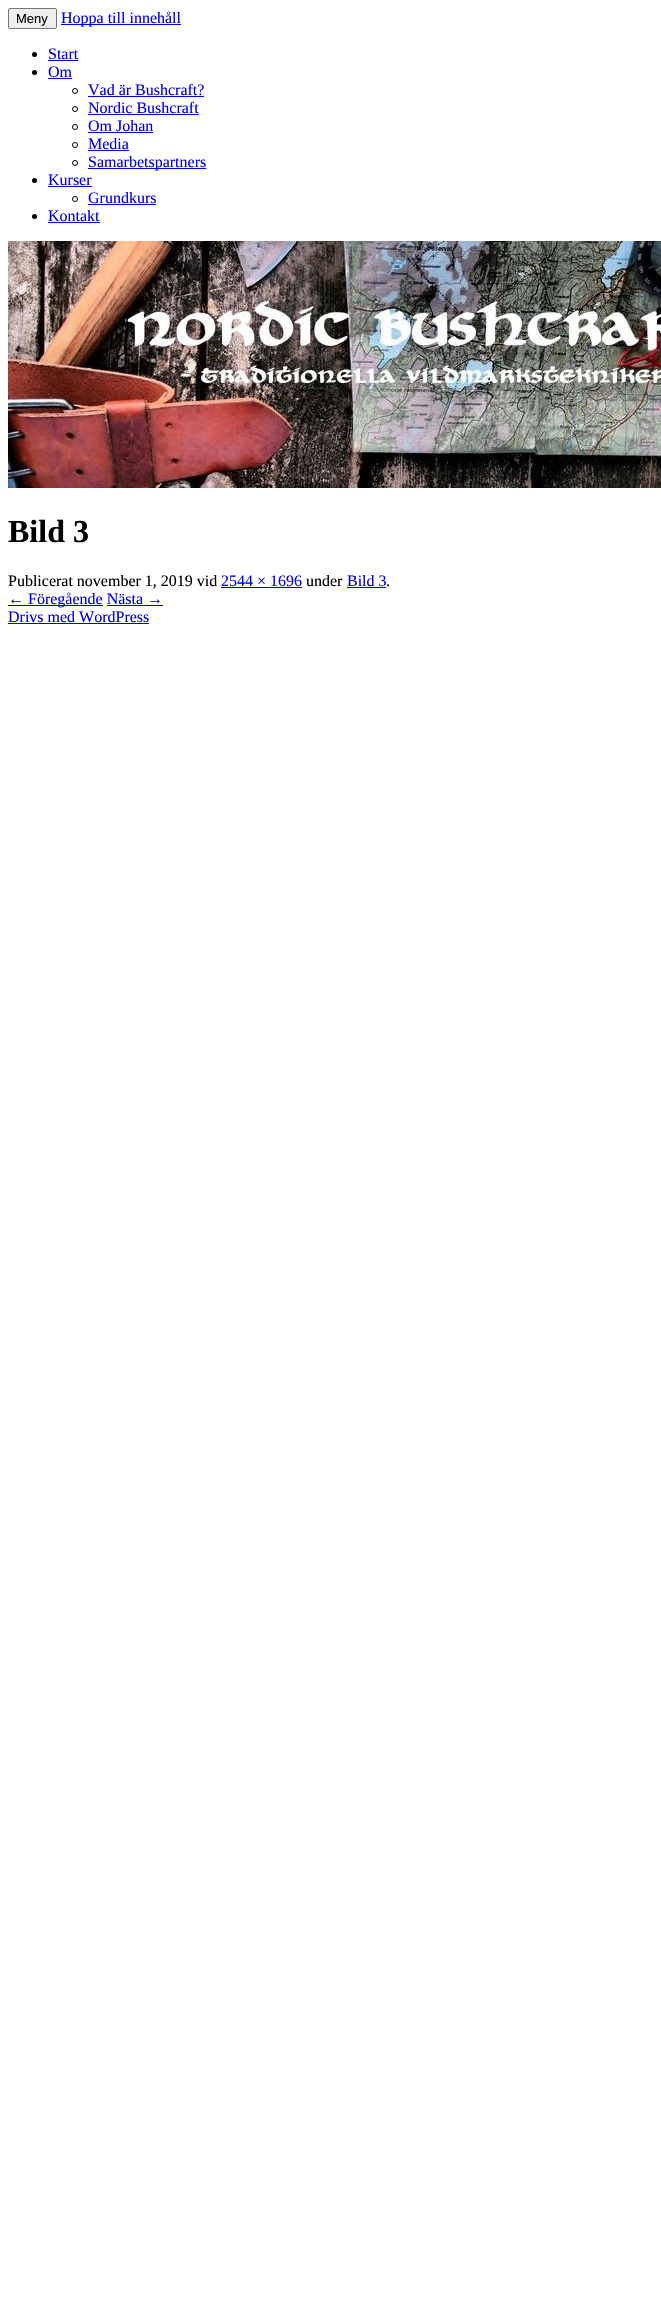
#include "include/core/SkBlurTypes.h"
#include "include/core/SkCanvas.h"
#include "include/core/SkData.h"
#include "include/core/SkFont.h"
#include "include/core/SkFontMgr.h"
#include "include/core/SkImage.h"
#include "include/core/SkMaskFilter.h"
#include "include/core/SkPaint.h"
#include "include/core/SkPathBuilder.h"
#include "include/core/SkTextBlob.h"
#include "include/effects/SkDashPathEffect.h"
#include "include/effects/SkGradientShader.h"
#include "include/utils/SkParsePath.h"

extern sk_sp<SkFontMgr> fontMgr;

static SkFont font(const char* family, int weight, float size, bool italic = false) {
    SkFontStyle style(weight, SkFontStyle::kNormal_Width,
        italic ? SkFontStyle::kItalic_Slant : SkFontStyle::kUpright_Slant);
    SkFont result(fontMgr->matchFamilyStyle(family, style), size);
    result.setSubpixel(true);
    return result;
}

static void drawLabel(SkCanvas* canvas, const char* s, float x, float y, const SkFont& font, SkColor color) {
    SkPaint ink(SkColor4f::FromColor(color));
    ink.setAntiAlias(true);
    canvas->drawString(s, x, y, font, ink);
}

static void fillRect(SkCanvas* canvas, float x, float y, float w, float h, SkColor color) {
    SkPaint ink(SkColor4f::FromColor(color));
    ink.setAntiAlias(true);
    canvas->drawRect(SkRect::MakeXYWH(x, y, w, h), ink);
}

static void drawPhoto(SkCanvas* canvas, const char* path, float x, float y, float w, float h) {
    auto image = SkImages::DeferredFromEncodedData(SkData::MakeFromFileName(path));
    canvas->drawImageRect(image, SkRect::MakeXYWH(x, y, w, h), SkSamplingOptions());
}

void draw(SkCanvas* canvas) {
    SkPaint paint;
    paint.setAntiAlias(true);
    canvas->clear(0xFFFFFFFF);
    paint.setColor(0xFFEFEFEF);
    canvas->drawRoundRect(SkRect::MakeXYWH(8.5f, 8.5f, 48, 20), 1.5f, 1.5f, paint);
    paint.setStroke(true);
    paint.setStrokeWidth(1);
    paint.setColor(0xFF767676);
    canvas->drawRoundRect(SkRect::MakeXYWH(8.5f, 8.5f, 48, 20), 1.5f, 1.5f, paint);
    SkFont font1 = font("Liberation Sans", 400, 13);
    drawLabel(canvas, "Meny", 16, 23, font1, 0xFF000000);
    fillRect(canvas, 61, 24, 120, 1, 0xFF0000EE);
    SkFont font2 = font("Liberation Serif", 400, 16);
    drawLabel(canvas, "Hoppa till innehåll", 61, 23, font2, 0xFF0000EE);
    paint.setStroke(false);
    paint.setColor(0xFF000000);
    canvas->drawCircle(34.5f, 54.5f, 2.5f, paint);
    drawLabel(canvas, "Start", 48, 59, font2, 0xFF0000EE);
    fillRect(canvas, 48, 60, 30, 1, 0xFF0000EE);
    canvas->drawCircle(34.5f, 72.5f, 2.5f, paint);
    drawLabel(canvas, "Om", 48, 77, font2, 0xFF0000EE);
    fillRect(canvas, 48, 78, 24, 1, 0xFF0000EE);
    paint.setStroke(true);
    canvas->drawCircle(75, 91, 2.5f, paint);
    drawLabel(canvas, "Vad är Bushcraft?", 88, 95, font2, 0xFF0000EE);
    fillRect(canvas, 88, 96, 116, 1, 0xFF0000EE);
    canvas->drawCircle(75, 109, 2.5f, paint);
    drawLabel(canvas, "Nordic Bushcraft", 88, 113, font2, 0xFF0000EE);
    fillRect(canvas, 88, 114, 111, 1, 0xFF0000EE);
    canvas->drawCircle(75, 127, 2.5f, paint);
    drawLabel(canvas, "Om Johan", 88, 131, font2, 0xFF0000EE);
    fillRect(canvas, 88, 132, 65, 1, 0xFF0000EE);
    canvas->drawCircle(75, 145, 2.5f, paint);
    drawLabel(canvas, "Media", 88, 149, font2, 0xFF0000EE);
    fillRect(canvas, 88, 150, 41, 1, 0xFF0000EE);
    canvas->drawCircle(75, 163, 2.5f, paint);
    fillRect(canvas, 88, 168, 118, 1, 0xFF0000EE);
    drawLabel(canvas, "Samarbetspartners", 88, 167, font2, 0xFF0000EE);
    paint.setStroke(false);
    canvas->drawCircle(34.5f, 180.5f, 2.5f, paint);
    drawLabel(canvas, "Kurser", 48, 185, font2, 0xFF0000EE);
    fillRect(canvas, 48, 186, 44, 1, 0xFF0000EE);
    paint.setStroke(true);
    canvas->drawCircle(75, 199, 2.5f, paint);
    drawLabel(canvas, "Grundkurs", 88, 203, font2, 0xFF0000EE);
    fillRect(canvas, 88, 204, 68, 1, 0xFF0000EE);
    paint.setStroke(false);
    canvas->drawCircle(34.5f, 216.5f, 2.5f, paint);
    drawLabel(canvas, "Kontakt", 48, 221, font2, 0xFF0000EE);
    fillRect(canvas, 48, 222, 52, 1, 0xFF0000EE);
    drawPhoto(canvas, "assets/img1.png", 8, 241, 653, 247);
    SkFont font3 = font("Liberation Serif", 700, 32);
    drawLabel(canvas, "Bild 3", 8, 542, font3, 0xFF000000);
    drawLabel(canvas, "Publicerat november 1, 2019 vid", 8, 586, font2, 0xFF000000);
    drawLabel(canvas, "2544 × 1696", 221, 586, font2, 0xFF0000EE);
    fillRect(canvas, 221, 587, 81, 1, 0xFF0000EE);
    drawLabel(canvas, "under", 306, 586, font2, 0xFF000000);
    drawLabel(canvas, "Bild 3", 347, 586, font2, 0xFF0000EE);
    fillRect(canvas, 347, 587, 39, 1, 0xFF0000EE);
    drawLabel(canvas, ".", 386, 586, font2, 0xFF000000);
    fillRect(canvas, 8, 605, 95, 1, 0xFF0000EE);
    drawLabel(canvas, "← Föregående Nästa →", 8, 604, font2, 0xFF0000EE);
    fillRect(canvas, 107, 605, 56, 1, 0xFF0000EE);
    drawLabel(canvas, "Drivs med WordPress", 8, 622, font2, 0xFF0000EE);
    fillRect(canvas, 8, 623, 141, 1, 0xFF0000EE);
}
